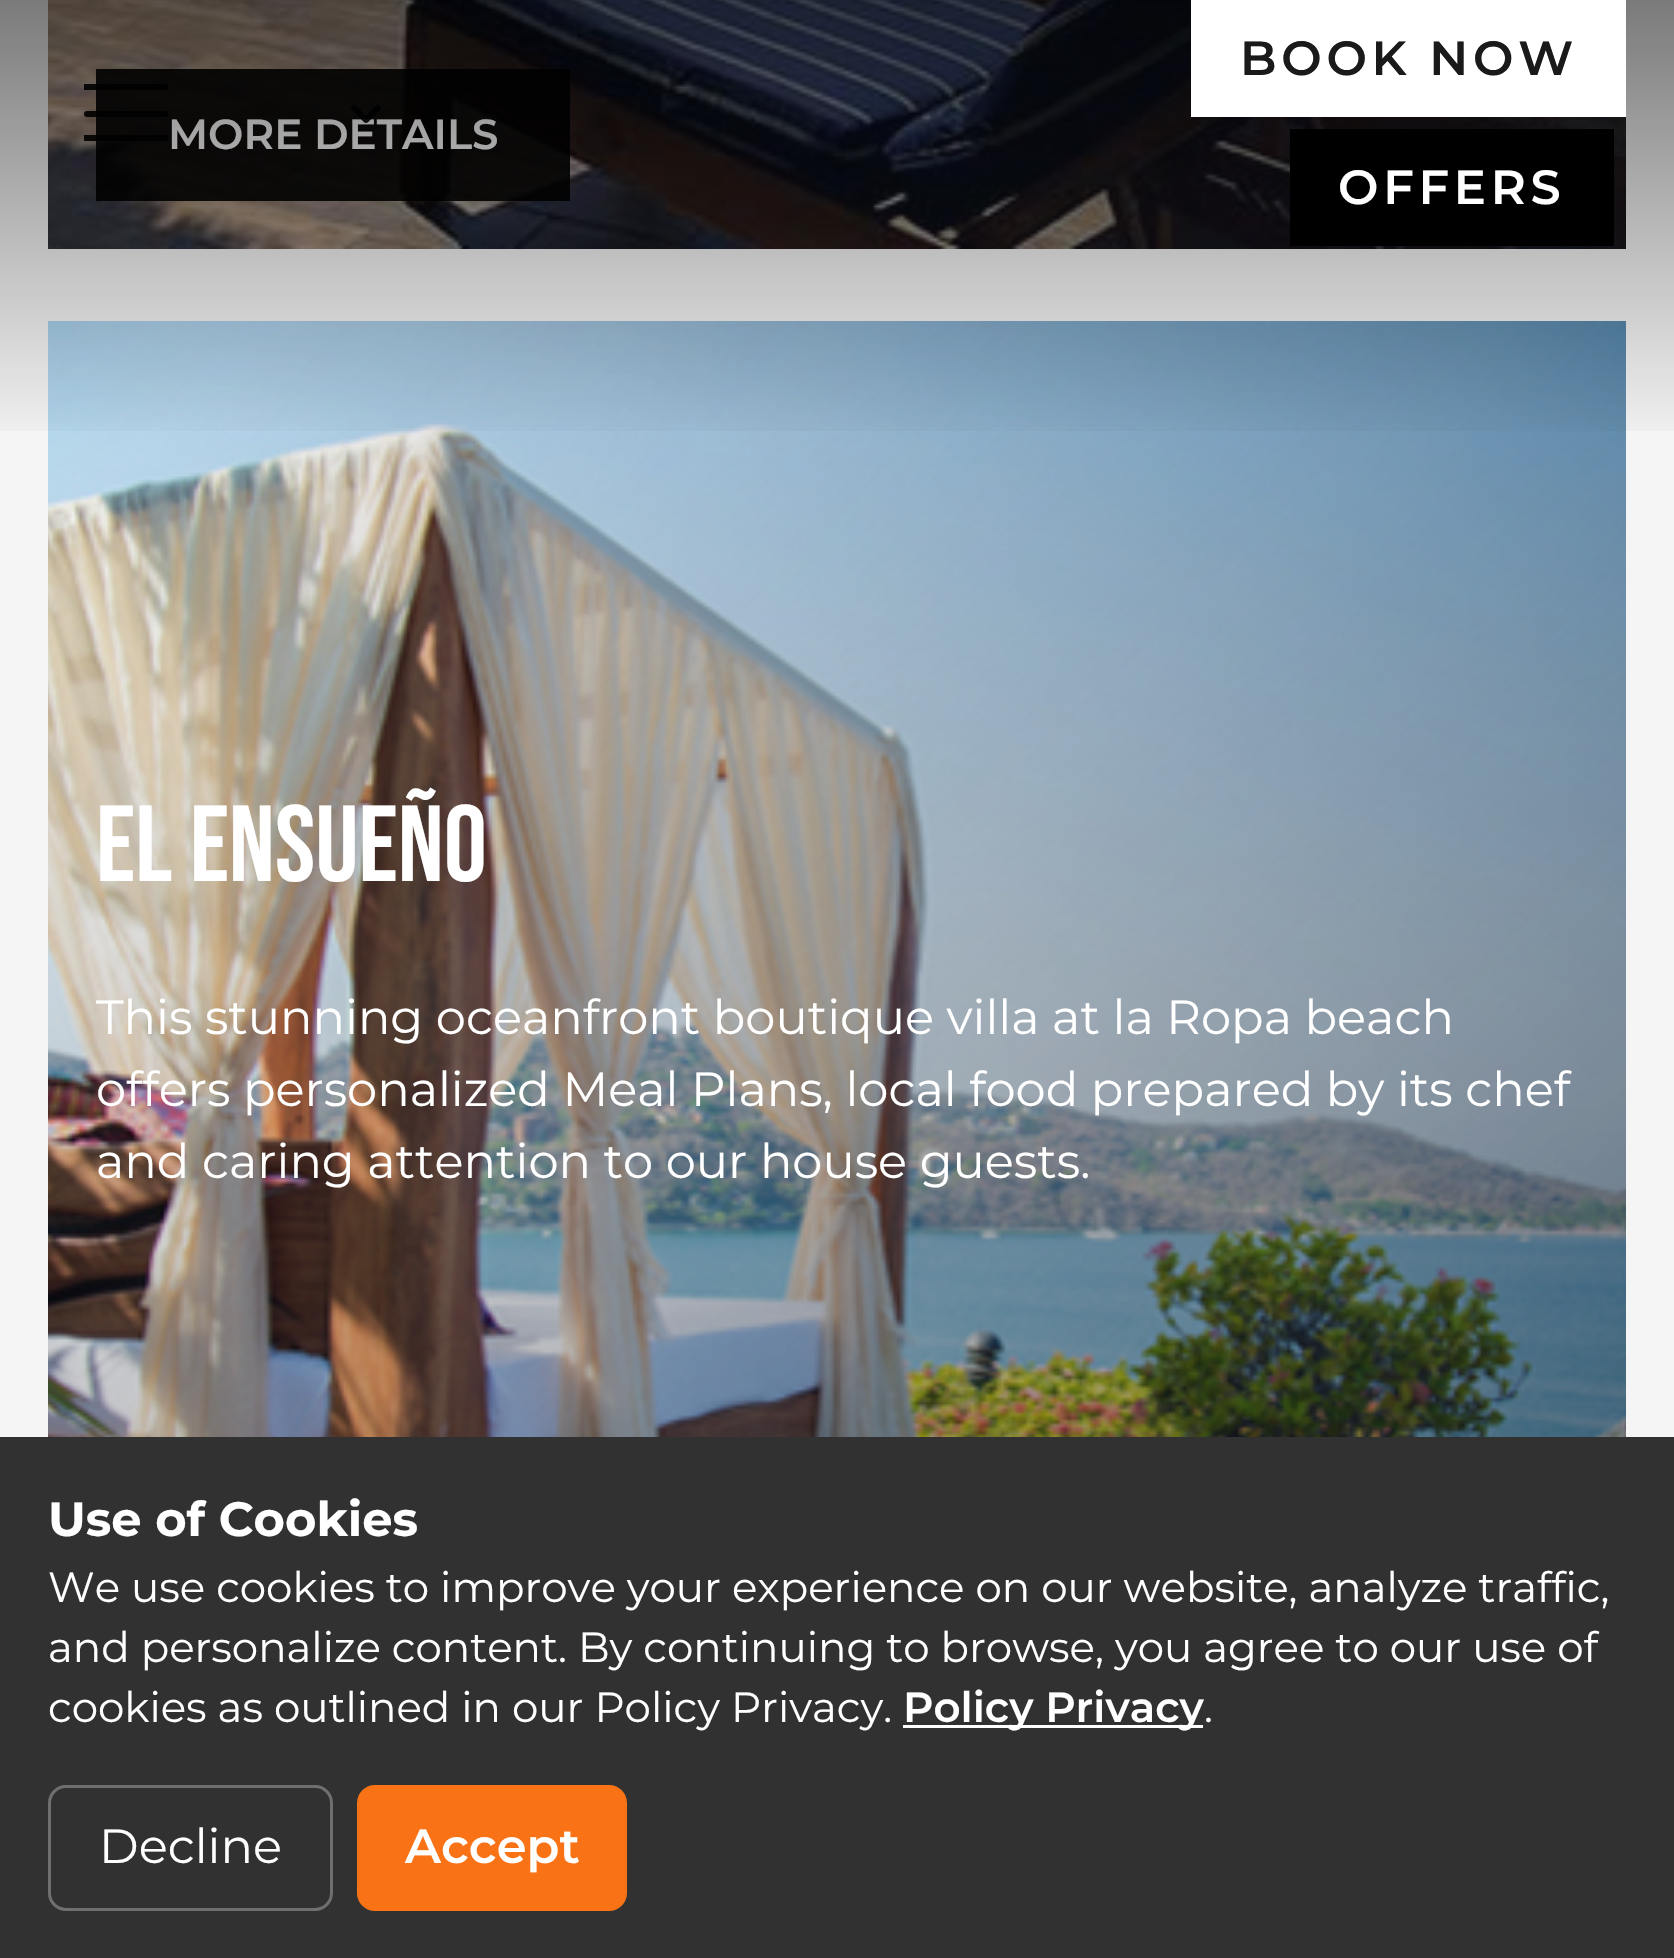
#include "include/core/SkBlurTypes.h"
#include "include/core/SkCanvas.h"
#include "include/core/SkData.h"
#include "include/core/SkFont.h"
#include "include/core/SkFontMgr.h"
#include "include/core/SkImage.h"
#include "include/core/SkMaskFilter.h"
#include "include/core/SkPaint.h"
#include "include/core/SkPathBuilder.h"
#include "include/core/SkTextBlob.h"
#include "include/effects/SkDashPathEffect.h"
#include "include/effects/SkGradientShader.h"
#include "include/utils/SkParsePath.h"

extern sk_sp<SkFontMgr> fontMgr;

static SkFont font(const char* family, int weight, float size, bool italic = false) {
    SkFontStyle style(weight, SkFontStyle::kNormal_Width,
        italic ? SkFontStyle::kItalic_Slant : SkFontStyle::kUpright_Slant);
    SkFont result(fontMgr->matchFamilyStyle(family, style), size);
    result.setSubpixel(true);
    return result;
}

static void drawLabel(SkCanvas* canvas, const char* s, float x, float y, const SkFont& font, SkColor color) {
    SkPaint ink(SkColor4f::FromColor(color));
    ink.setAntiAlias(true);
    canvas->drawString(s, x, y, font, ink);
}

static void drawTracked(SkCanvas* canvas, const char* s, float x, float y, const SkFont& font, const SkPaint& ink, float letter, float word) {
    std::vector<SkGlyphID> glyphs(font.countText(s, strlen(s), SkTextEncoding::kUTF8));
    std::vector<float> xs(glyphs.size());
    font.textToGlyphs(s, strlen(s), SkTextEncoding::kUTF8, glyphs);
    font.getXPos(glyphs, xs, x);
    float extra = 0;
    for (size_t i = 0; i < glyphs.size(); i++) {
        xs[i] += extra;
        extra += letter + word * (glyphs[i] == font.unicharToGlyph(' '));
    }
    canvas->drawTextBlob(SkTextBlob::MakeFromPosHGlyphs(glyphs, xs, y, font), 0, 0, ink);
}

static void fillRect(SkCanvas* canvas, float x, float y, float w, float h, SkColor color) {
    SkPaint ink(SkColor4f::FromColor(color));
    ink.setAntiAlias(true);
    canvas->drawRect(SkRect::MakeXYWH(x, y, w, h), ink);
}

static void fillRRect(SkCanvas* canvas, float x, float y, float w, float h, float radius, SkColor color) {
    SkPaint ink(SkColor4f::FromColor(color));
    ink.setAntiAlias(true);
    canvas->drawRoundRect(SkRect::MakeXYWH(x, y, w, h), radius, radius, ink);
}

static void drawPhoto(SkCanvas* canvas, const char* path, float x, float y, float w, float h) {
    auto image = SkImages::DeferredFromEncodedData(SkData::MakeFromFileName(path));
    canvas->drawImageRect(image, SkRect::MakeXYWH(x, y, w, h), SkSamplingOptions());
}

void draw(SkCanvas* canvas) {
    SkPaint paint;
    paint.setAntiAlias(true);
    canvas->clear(0xFFF5F5F5);
    drawPhoto(canvas, "assets/img2.png", 48, 0, 1578, 249);
    fillRect(canvas, 96, 69, 474, 132, 0xE6000000);
    SkFont font1 = font("Montserrat", 600, 42);
    drawLabel(canvas, "MORE DETAILS", 168, 149, font1, 0xFFFFFFFF);
    drawPhoto(canvas, "assets/img3.png", 48, 321, 1578, 1116);
    {
        const SkColor colors[] = {0x80000000, 0x00000000};
        const float stops[] = {0, 1};
        const SkPoint ends[] = {{837, 0}, {837, 450}};
        paint.setShader(SkGradientShader::MakeLinear(ends, colors, stops, 2, SkTileMode::kClamp));
        paint.setAlpha(255);
    }
    canvas->drawRect(SkRect::MakeXYWH(0, 0, 1674, 431), paint);
    fillRRect(canvas, 84, 111, 84, 6, 3, 0xE6000000);
    fillRect(canvas, 84, 84, 84, 6, 0xE6000000);
    fillRect(canvas, 84, 135, 84, 6, 0xE6000000);
    drawPhoto(canvas, "assets/img1.png", 351, 105, 30, 18);
    fillRect(canvas, 1191, 0, 435, 117, 0xFFFFFFFF);
    SkFont font2 = font("Montserrat", 600, 48);
    paint.setShader(nullptr);
    paint.setColor(0xFF1A1A1A);
    drawTracked(canvas, "BOOK NOW", 1240, 75, font2, paint, 4.75f, 0);
    fillRect(canvas, 1290, 129, 324, 117, 0xFF000000);
    paint.setColor(0xFFFFFFFF);
    drawTracked(canvas, "OFFERS", 1338, 204, font2, paint, 4.75f, 0);
    SkFont font3 = font("Bebas Neue", 400, 108);
    drawLabel(canvas, "El Ensueño", 96, 881, font3, 0xFFFFFFFF);
    SkFont font4 = font("Montserrat", 400, 48);
    drawLabel(canvas, "This stunning oceanfront boutique villa at la Ropa beach", 96, 1034, font4, 0xFFFFFFFF);
    drawLabel(canvas, "offers personalized Meal Plans, local food prepared by its chef", 96, 1106, font4, 0xFFFFFFFF);
    drawLabel(canvas, "and caring attention to our house guests.", 96, 1178, font4, 0xFFFFFFFF);
    fillRect(canvas, 0, 1437, 1674, 521, 0xFF313131);
    SkFont font5 = font("Montserrat", 700, 48);
    drawLabel(canvas, "Use of Cookies", 48, 1536, font5, 0xFFFFFFFF);
    SkFont font6 = font("Montserrat", 400, 42);
    drawLabel(canvas, "We use cookies to improve your experience on our website, analyze traffic,", 48, 1602, font6, 0xFFFFFFFF);
    drawLabel(canvas, "and personalize content. By continuing to browse, you agree to our use of", 48, 1662, font6, 0xFFFFFFFF);
    drawLabel(canvas, "cookies as outlined in our Policy Privacy.", 48, 1722, font6, 0xFFFFFFFF);
    fillRect(canvas, 903, 1725, 300, 3, 0xFFFFFFFF);
    drawLabel(canvas, "Policy Privacy", 903, 1722, font1, 0xFFFFFFFF);
    drawLabel(canvas, ".", 1204, 1722, font6, 0xFFFFFFFF);
    paint.setStroke(true);
    paint.setStrokeWidth(3);
    paint.setColor(0xFF6F6F6F);
    canvas->drawRoundRect(SkRect::MakeXYWH(49.5f, 1786.5f, 282, 123), 16.5f, 16.5f, paint);
    drawLabel(canvas, "Decline", 99, 1863, font4, 0xFFFFFFFF);
    fillRRect(canvas, 357, 1785, 270, 126, 18, 0xFFF97316);
    drawLabel(canvas, "Accept", 405, 1863, font2, 0xFFFFFFFF);
}
